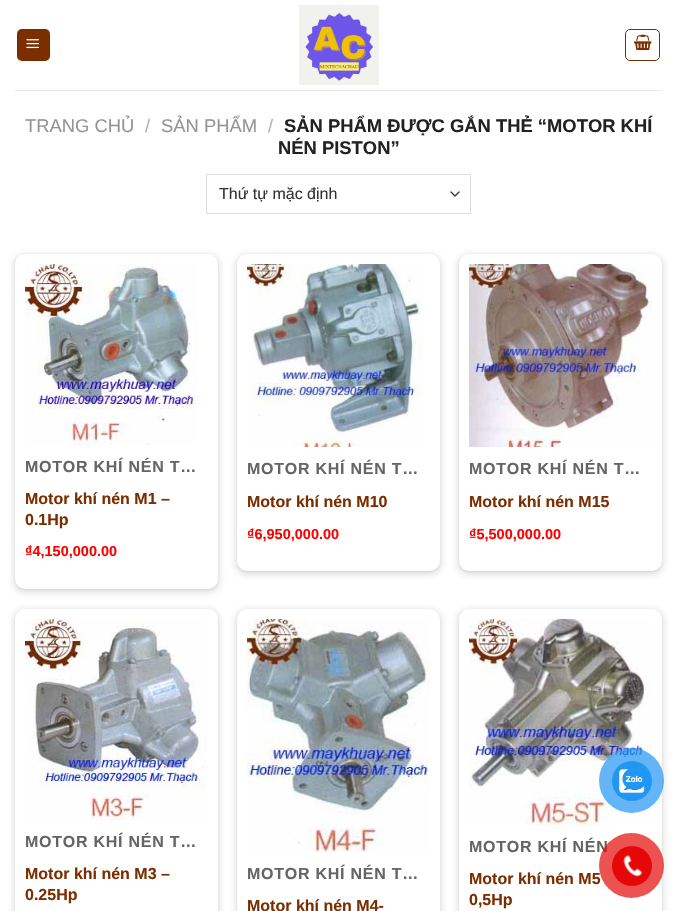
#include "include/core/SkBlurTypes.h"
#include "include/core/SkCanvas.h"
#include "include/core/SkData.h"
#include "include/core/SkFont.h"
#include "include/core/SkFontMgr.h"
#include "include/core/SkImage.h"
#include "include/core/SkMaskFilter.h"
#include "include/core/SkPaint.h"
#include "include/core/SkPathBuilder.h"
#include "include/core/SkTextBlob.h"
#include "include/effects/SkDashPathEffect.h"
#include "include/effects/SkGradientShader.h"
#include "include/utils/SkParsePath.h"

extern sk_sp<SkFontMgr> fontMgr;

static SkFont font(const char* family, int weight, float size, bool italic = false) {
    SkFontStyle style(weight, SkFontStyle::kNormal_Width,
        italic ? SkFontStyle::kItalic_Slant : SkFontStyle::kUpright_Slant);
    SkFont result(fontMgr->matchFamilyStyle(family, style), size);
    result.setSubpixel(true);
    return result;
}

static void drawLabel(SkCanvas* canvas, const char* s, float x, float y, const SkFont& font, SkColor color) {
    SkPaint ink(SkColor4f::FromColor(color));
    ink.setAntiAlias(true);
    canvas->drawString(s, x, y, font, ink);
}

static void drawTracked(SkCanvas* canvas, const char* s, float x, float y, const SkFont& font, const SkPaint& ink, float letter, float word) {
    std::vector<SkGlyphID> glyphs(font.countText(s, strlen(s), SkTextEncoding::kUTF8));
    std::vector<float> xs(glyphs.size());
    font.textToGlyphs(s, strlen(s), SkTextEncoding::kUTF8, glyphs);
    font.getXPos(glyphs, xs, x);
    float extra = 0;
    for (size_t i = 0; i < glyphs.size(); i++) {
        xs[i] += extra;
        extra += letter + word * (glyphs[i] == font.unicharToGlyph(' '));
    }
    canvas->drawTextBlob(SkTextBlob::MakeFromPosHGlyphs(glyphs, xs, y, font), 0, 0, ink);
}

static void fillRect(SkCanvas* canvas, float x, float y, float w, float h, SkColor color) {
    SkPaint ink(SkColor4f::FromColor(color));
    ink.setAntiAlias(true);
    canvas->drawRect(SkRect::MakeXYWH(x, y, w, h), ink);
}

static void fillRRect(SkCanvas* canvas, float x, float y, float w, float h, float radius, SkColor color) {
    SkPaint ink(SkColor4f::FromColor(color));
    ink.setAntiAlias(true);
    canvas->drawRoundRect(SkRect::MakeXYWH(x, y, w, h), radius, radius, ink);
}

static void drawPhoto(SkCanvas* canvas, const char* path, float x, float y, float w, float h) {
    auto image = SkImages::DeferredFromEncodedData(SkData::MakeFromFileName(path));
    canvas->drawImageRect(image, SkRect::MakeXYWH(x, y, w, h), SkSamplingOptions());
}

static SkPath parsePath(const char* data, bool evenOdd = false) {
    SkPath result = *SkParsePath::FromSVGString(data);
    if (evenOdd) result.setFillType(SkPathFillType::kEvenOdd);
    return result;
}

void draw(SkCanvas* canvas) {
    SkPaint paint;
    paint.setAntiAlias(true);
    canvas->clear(0xFFFFFFFF);
    fillRRect(canvas, 17, 29, 33, 32, 5, 0xFF7B2E00);
    paint.setStroke(true);
    paint.setStrokeWidth(1);
    paint.setColor(0x0D000000);
    canvas->drawRect(SkRect::MakeXYWH(17.5f, 29.5f, 32, 31), paint);
    drawPhoto(canvas, "assets/img1.png", 26, 39, 13, 10);
    drawPhoto(canvas, "assets/img2.png", 299, 5, 80, 80);
    paint.setColor(0xFF7B2E00);
    canvas->drawRoundRect(SkRect::MakeXYWH(625.5f, 29.5f, 34, 31), 4.5f, 4.5f, paint);
    drawPhoto(canvas, "assets/img3.png", 634, 34, 18, 17);
    fillRect(canvas, 15, 90, 647, 1, 0xFFE9E9E9);
    SkFont font1 = font("Liberation Sans", 400, 18.4f);
    drawLabel(canvas, "TRANG CHỦ", 25, 132, font1, 0xFF949494);
    drawLabel(canvas, "/", 145, 132, font1, 0xFFB2B2B2);
    drawLabel(canvas, "SẢN PHẨM", 161, 132, font1, 0xFF949494);
    drawLabel(canvas, "/", 268, 132, font1, 0xFFB2B2B2);
    SkFont font2 = font("Liberation Sans", 700, 18.4f);
    drawLabel(canvas, "SẢN PHẨM ĐƯỢC GẮN THẺ “MOTOR KHÍ", 284, 132, font2, 0xFF222222);
    drawLabel(canvas, "NÉN PISTON”", 278, 154, font2, 0xFF222222);
    paint.setStrokeWidth(1.3f);
    paint.setStrokeCap(SkPaint::kRound_Cap);
    paint.setStrokeJoin(SkPaint::kRound_Join);
    paint.setColor(0xFF333333);
    canvas->drawPath(parsePath("M451 192L455 196L459 192"), paint);
    paint.setStrokeWidth(1);
    paint.setStrokeCap(SkPaint::kButt_Cap);
    paint.setStrokeJoin(SkPaint::kMiter_Join);
    paint.setColor(0xFFDDDDDD);
    canvas->drawRect(SkRect::MakeXYWH(206.5f, 174.5f, 264, 39), paint);
    SkFont font3 = font("Liberation Sans", 400, 16);
    drawLabel(canvas, "Thứ tự mặc định", 219, 199, font3, 0xFF333333);
    paint.setStroke(false);
    paint.setColor(0x263C4043);
    paint.setMaskFilter(SkMaskFilter::MakeBlur(kNormal_SkBlurStyle, 3));
    canvas->drawRoundRect(SkRect::MakeXYWH(13, 254, 207, 339), 12, 12, paint);
    paint.setMaskFilter(nullptr);
    paint.setColor(0x1A3C4043);
    paint.setMaskFilter(SkMaskFilter::MakeBlur(kNormal_SkBlurStyle, 1));
    canvas->drawRoundRect(SkRect::MakeXYWH(15, 255, 203, 335), 10, 10, paint);
    paint.setMaskFilter(nullptr);
    fillRRect(canvas, 15, 254, 203, 335, 10, 0xFFFFFFFF);
    drawPhoto(canvas, "assets/img4.png", 25, 264, 172, 181);
    SkFont font4 = font("Liberation Sans", 700, 16);
    paint.setColor(0xFF656565);
    drawTracked(canvas, "MOTOR KHÍ NÉN T…", 25, 472, font4, paint, 0.75f, 0);
    drawLabel(canvas, "Motor khí nén M1 –", 25, 504, font4, 0xFF7B2E00);
    drawLabel(canvas, "0.1Hp", 25, 525, font4, 0xFF7B2E00);
    SkFont font5 = font("Liberation Sans", 700, 14.5f);
    drawLabel(canvas, "₫4,150,000.00", 25, 556, font5, 0xFFFF0000);
    paint.setColor(0x263C4043);
    paint.setMaskFilter(SkMaskFilter::MakeBlur(kNormal_SkBlurStyle, 3));
    canvas->drawRoundRect(SkRect::MakeXYWH(235, 254, 207, 321), 12, 12, paint);
    paint.setMaskFilter(nullptr);
    paint.setColor(0x1A3C4043);
    paint.setMaskFilter(SkMaskFilter::MakeBlur(kNormal_SkBlurStyle, 1));
    canvas->drawRoundRect(SkRect::MakeXYWH(237, 255, 203, 317), 10, 10, paint);
    paint.setMaskFilter(nullptr);
    fillRRect(canvas, 237, 254, 203, 317, 10, 0xFFFFFFFF);
    drawPhoto(canvas, "assets/img5.png", 247, 264, 177, 183);
    paint.setColor(0xFF656565);
    drawTracked(canvas, "MOTOR KHÍ NÉN T…", 247, 474, font4, paint, 0.75f, 0);
    drawLabel(canvas, "Motor khí nén M10", 247, 507, font4, 0xFF7B2E00);
    drawLabel(canvas, "₫6,950,000.00", 247, 539, font5, 0xFFFF0000);
    paint.setColor(0x263C4043);
    paint.setMaskFilter(SkMaskFilter::MakeBlur(kNormal_SkBlurStyle, 3));
    canvas->drawRoundRect(SkRect::MakeXYWH(457, 254, 207, 321), 12, 12, paint);
    paint.setMaskFilter(nullptr);
    paint.setColor(0x1A3C4043);
    paint.setMaskFilter(SkMaskFilter::MakeBlur(kNormal_SkBlurStyle, 1));
    canvas->drawRoundRect(SkRect::MakeXYWH(459, 255, 203, 317), 10, 10, paint);
    paint.setMaskFilter(nullptr);
    fillRRect(canvas, 459, 254, 203, 317, 10, 0xFFFFFFFF);
    drawPhoto(canvas, "assets/img6.png", 469, 264, 183, 183);
    paint.setColor(0xFF656565);
    drawTracked(canvas, "MOTOR KHÍ NÉN T…", 469, 474, font4, paint, 0.75f, 0);
    drawLabel(canvas, "Motor khí nén M15", 469, 507, font4, 0xFF7B2E00);
    drawLabel(canvas, "₫5,500,000.00", 469, 539, font5, 0xFFFF0000);
    paint.setColor(0x263C4043);
    paint.setMaskFilter(SkMaskFilter::MakeBlur(kNormal_SkBlurStyle, 3));
    canvas->drawRoundRect(SkRect::MakeXYWH(13, 609, 207, 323), 12, 12, paint);
    paint.setMaskFilter(nullptr);
    paint.setColor(0x1A3C4043);
    paint.setMaskFilter(SkMaskFilter::MakeBlur(kNormal_SkBlurStyle, 1));
    canvas->drawRoundRect(SkRect::MakeXYWH(15, 610, 203, 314), 10, 10, paint);
    paint.setMaskFilter(nullptr);
    fillRRect(canvas, 15, 609, 203, 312, 10, 0xFFFFFFFF);
    drawPhoto(canvas, "assets/img7.png", 25, 619, 182, 201);
    paint.setColor(0xFF656565);
    drawTracked(canvas, "MOTOR KHÍ NÉN T…", 25, 847, font4, paint, 0.75f, 0);
    drawLabel(canvas, "Motor khí nén M3 –", 25, 879, font4, 0xFF7B2E00);
    drawLabel(canvas, "0.25Hp", 25, 900, font4, 0xFF7B2E00);
    paint.setColor(0x263C4043);
    paint.setMaskFilter(SkMaskFilter::MakeBlur(kNormal_SkBlurStyle, 3));
    canvas->drawRoundRect(SkRect::MakeXYWH(235, 609, 207, 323), 12, 12, paint);
    paint.setMaskFilter(nullptr);
    paint.setColor(0x1A3C4043);
    paint.setMaskFilter(SkMaskFilter::MakeBlur(kNormal_SkBlurStyle, 1));
    canvas->drawRoundRect(SkRect::MakeXYWH(237, 610, 203, 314), 10, 10, paint);
    paint.setMaskFilter(nullptr);
    fillRRect(canvas, 237, 609, 203, 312, 10, 0xFFFFFFFF);
    drawPhoto(canvas, "assets/img8.png", 247, 619, 183, 233);
    paint.setColor(0xFF656565);
    drawTracked(canvas, "MOTOR KHÍ NÉN T…", 247, 879, font4, paint, 0.75f, 0);
    drawLabel(canvas, "Motor khí nén M4-", 247, 911, font4, 0xFF7B2E00);
    paint.setColor(0x263C4043);
    paint.setMaskFilter(SkMaskFilter::MakeBlur(kNormal_SkBlurStyle, 3));
    canvas->drawRoundRect(SkRect::MakeXYWH(457, 609, 207, 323), 12, 12, paint);
    paint.setMaskFilter(nullptr);
    paint.setColor(0x1A3C4043);
    paint.setMaskFilter(SkMaskFilter::MakeBlur(kNormal_SkBlurStyle, 1));
    canvas->drawRoundRect(SkRect::MakeXYWH(459, 610, 203, 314), 10, 10, paint);
    paint.setMaskFilter(nullptr);
    fillRRect(canvas, 459, 609, 203, 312, 10, 0xFFFFFFFF);
    drawPhoto(canvas, "assets/img9.png", 469, 619, 183, 206);
    paint.setColor(0xFF656565);
    drawTracked(canvas, "MOTOR KHÍ NÉN", 469, 852, font4, paint, 0.75f, 0);
    drawLabel(canvas, "Motor khí nén M5", 469, 884, font4, 0xFF7B2E00);
    drawLabel(canvas, "0,5Hp", 469, 905, font4, 0xFF7B2E00);
    paint.setColor(0xB32196F3);
    canvas->drawCircle(631.5f, 780.5f, 32.5f, paint);
    paint.setColor(0xFF2196F3);
    canvas->drawCircle(632, 781, 20, paint);
    drawPhoto(canvas, "assets/img10.png", 619, 769, 26, 24);
    paint.setColor(0xB3E60808);
    canvas->drawCircle(631.5f, 865.5f, 32.5f, paint);
    paint.setColor(0xFFE60808);
    canvas->drawCircle(632, 866, 20, paint);
    drawPhoto(canvas, "assets/img11.png", 623, 855, 19, 22);
}
